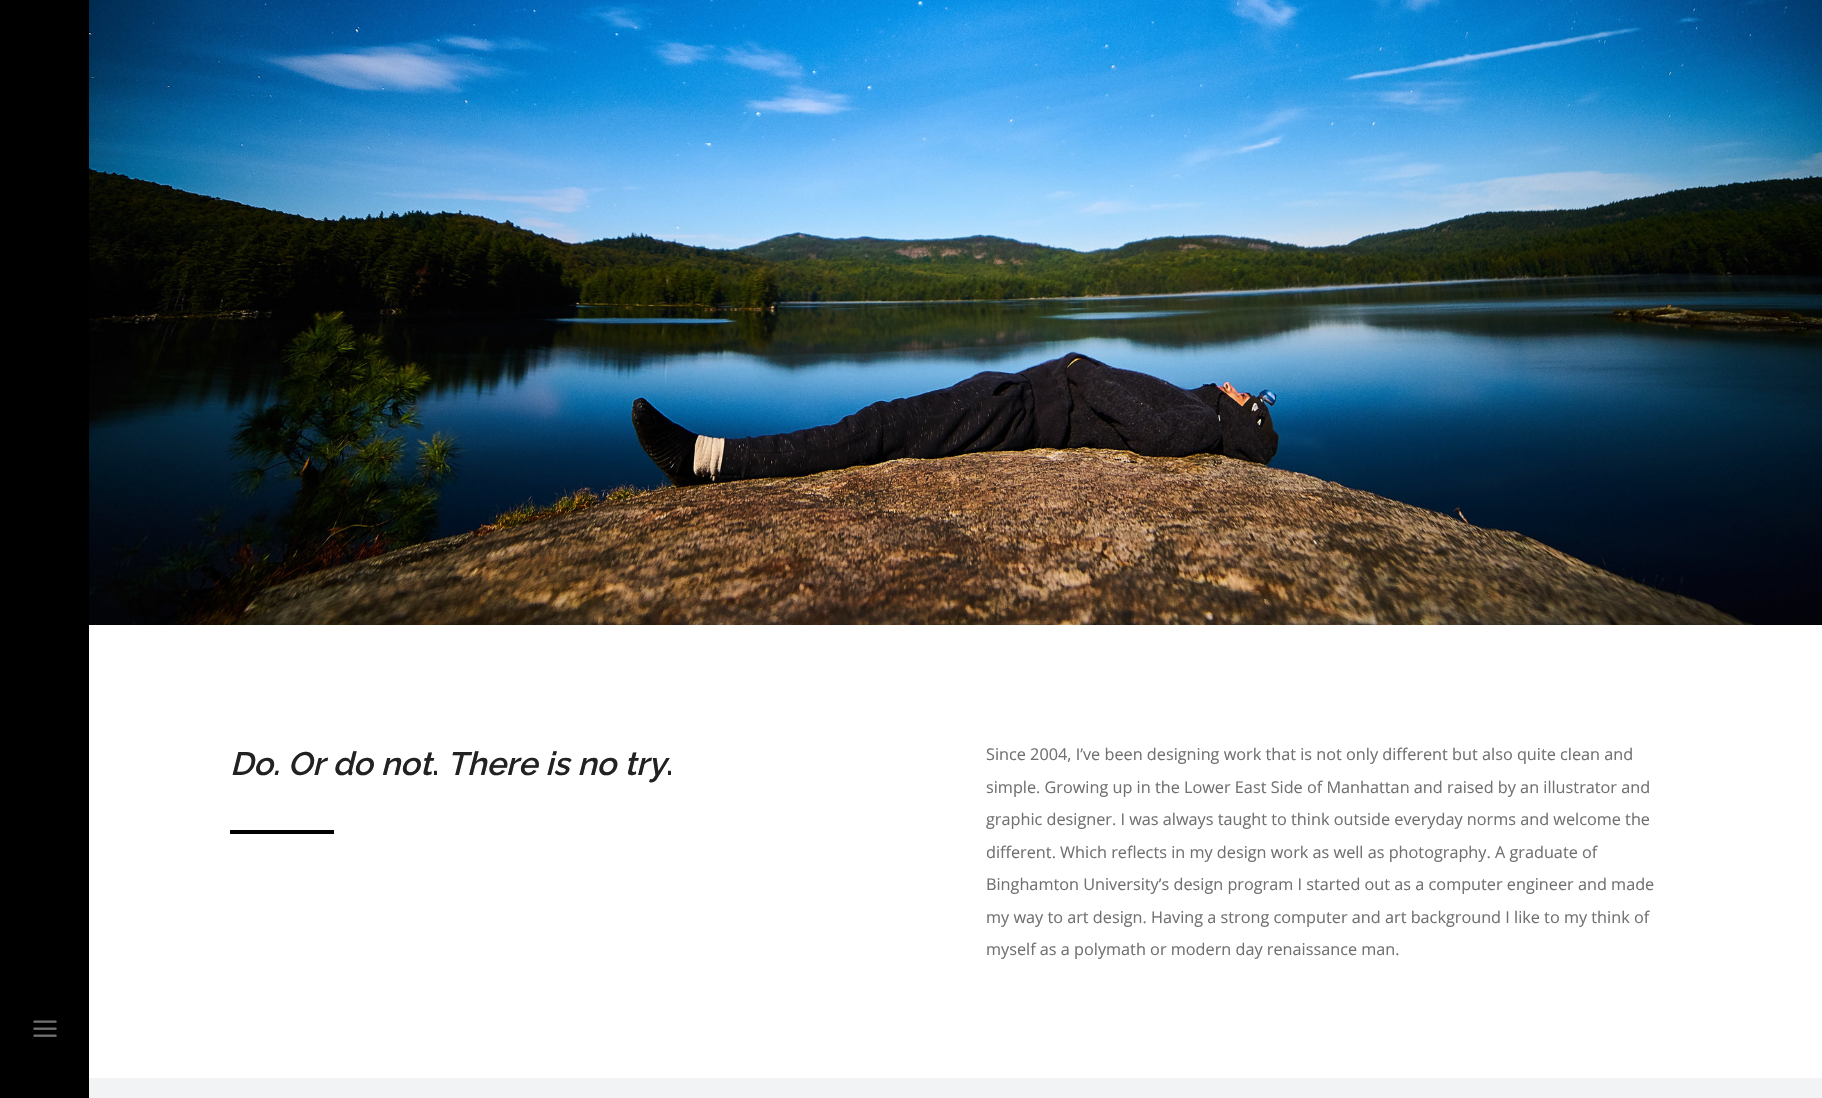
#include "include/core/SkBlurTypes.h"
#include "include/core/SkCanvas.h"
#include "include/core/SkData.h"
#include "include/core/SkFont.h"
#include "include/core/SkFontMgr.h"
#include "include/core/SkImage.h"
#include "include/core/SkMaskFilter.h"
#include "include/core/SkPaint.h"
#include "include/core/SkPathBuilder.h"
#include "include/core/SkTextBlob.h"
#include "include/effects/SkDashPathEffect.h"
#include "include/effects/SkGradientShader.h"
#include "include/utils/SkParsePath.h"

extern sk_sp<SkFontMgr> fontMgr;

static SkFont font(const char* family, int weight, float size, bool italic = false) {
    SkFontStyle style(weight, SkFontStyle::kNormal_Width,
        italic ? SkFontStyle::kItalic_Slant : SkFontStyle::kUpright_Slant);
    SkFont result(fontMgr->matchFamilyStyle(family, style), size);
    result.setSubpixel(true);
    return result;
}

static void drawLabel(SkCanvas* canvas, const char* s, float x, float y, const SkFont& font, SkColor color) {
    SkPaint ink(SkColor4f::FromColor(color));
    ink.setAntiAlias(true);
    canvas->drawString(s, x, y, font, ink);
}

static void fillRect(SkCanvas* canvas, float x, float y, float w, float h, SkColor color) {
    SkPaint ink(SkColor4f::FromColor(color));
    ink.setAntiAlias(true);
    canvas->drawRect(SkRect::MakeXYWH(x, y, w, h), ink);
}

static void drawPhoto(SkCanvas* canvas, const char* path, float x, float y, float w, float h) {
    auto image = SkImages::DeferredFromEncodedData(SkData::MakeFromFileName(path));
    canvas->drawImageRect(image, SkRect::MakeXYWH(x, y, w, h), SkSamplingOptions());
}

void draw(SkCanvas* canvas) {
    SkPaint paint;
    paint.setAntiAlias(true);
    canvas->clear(0xFFF2F3F5);
    fillRect(canvas, 0, 0, 89, 1098, 0xFF000000);
    drawPhoto(canvas, "assets/img1.png", 33, 1020, 24, 17);
    drawPhoto(canvas, "assets/img2.png", 89, 0, 1733, 625);
    fillRect(canvas, 89, 625, 1733, 453, 0xFFFFFFFF);
    SkFont font1 = font("Raleway", 600, 32.5f, true);
    drawLabel(canvas, "Do. Or do not", 230, 775, font1, 0xFF222222);
    drawLabel(canvas, "There is no try", 447, 775, font1, 0xFF222222);
    SkFont font2 = font("Raleway", 600, 32.5f);
    drawLabel(canvas, ".", 432, 775, font2, 0xFF222222);
    drawLabel(canvas, ".", 666, 775, font2, 0xFF222222);
    fillRect(canvas, 230, 830, 104, 4, 0xFF000000);
    SkFont font3 = font("Open Sans", 400, 16.25f);
    drawLabel(canvas, "Since 2004, I’ve been designing work that is not only different but also quite clean and", 986, 760, font3, 0xFF717171);
    drawLabel(canvas, "simple. Growing up in the Lower East Side of Manhattan and raised by an illustrator and", 986, 793, font3, 0xFF717171);
    drawLabel(canvas, "graphic designer. I was always taught to think outside everyday norms and welcome the", 986, 825, font3, 0xFF717171);
    drawLabel(canvas, "different. Which reflects in my design work as well as photography. A graduate of", 986, 858, font3, 0xFF717171);
    drawLabel(canvas, "Binghamton University’s design program I started out as a computer engineer and made", 986, 890, font3, 0xFF717171);
    drawLabel(canvas, "my way to art design. Having a strong computer and art background I like to my think of", 986, 923, font3, 0xFF717171);
    drawLabel(canvas, "myself as a polymath or modern day renaissance man.", 986, 955, font3, 0xFF717171);
}
